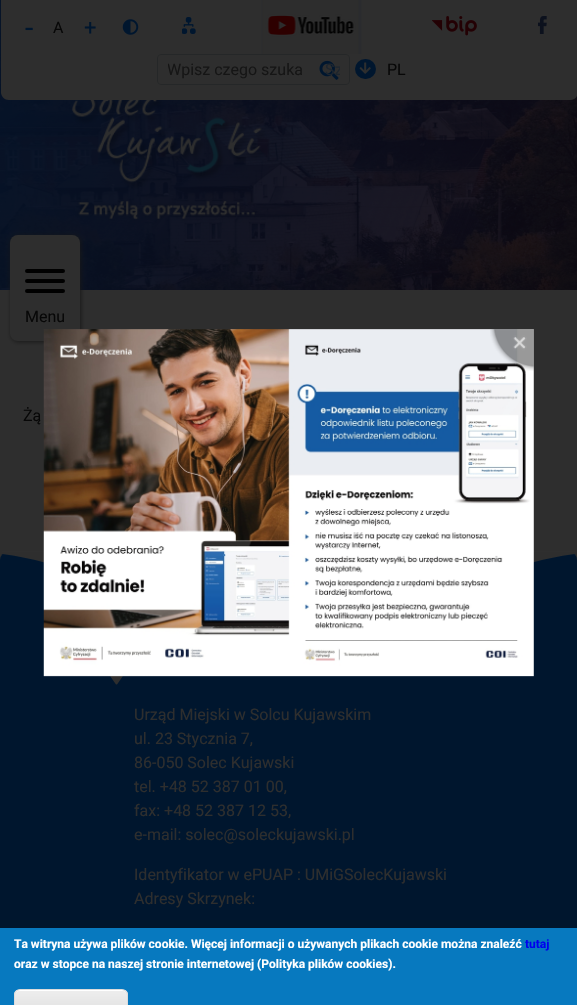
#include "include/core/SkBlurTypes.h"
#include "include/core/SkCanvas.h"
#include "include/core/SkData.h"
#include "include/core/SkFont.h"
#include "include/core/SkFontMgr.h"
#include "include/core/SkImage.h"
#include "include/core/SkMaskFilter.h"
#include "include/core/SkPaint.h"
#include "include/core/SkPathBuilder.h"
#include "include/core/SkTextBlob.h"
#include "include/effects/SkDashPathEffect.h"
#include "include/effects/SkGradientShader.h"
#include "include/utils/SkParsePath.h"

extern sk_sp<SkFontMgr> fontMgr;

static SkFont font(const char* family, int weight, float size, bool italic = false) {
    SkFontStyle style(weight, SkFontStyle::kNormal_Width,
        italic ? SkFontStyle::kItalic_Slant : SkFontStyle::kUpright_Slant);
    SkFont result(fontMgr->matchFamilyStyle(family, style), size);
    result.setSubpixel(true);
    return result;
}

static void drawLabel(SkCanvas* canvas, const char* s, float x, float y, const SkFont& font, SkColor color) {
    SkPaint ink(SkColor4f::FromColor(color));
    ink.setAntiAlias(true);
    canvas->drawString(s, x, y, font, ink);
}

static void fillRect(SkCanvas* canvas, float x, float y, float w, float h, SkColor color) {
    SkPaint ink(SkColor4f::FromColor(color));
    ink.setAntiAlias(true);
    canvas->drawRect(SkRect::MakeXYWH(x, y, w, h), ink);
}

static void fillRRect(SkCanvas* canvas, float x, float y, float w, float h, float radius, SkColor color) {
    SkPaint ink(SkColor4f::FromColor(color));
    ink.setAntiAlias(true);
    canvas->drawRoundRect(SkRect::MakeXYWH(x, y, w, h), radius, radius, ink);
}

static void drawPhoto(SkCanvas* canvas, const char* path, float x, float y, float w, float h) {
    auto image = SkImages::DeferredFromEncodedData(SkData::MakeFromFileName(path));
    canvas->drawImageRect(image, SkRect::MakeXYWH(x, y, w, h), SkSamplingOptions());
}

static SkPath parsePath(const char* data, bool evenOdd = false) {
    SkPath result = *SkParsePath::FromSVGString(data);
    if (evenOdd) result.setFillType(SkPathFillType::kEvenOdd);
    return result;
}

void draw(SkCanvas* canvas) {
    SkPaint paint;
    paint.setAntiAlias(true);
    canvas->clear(0xFF2E2E2E);
    drawPhoto(canvas, "assets/img1.png", 0, 0, 577, 290);
    paint.setColor(0xFF2E2E2E);
    canvas->drawPath(parsePath("M1 0H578V92C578 96.5 574.5 100 570 100H9C4.5 100 1 96.5 1 92Z"), paint);
    SkFont font1 = font("Roboto", 400, 30);
    drawLabel(canvas, "-", 25, 38, font1, 0xFF00162E);
    SkFont font2 = font("Roboto", 400, 16);
    drawLabel(canvas, "A", 53, 33, font2, 0xFF070707);
    SkFont font3 = font("Roboto", 400, 22);
    drawLabel(canvas, "+", 84, 35, font3, 0xFF00162E);
    drawPhoto(canvas, "assets/img2.png", 122, 19, 17, 16);
    drawPhoto(canvas, "assets/img3.png", 182, 17, 14, 17);
    drawPhoto(canvas, "assets/img4.png", 261, 0, 101, 54);
    drawPhoto(canvas, "assets/img5.png", 432, 16, 45, 20);
    drawPhoto(canvas, "assets/img6.png", 538, 16, 9, 18);
    paint.setStroke(true);
    paint.setStrokeWidth(1);
    paint.setColor(0xFF252728);
    canvas->drawRoundRect(SkRect::MakeXYWH(157.5f, 54.5f, 192, 30), 3.5f, 3.5f, paint);
    canvas->save();
    canvas->clipRect(SkRect::MakeXYWH(168, 60, 137, 19));
    drawLabel(canvas, "Wpisz czego szuka", 167, 75, font2, 0xFF151515);
    canvas->restore();
    drawPhoto(canvas, "assets/img7.png", 319, 60, 20, 20);
    canvas->save();
    canvas->clipRect(SkRect::MakeXYWH(320, 60, 20, 21));
    drawLabel(canvas, "Sz", 325, 75, font2, 0xFF1D252E);
    canvas->restore();
    fillRRect(canvas, 355, 59, 21, 20, 10, 0xFF00162E);
    drawPhoto(canvas, "assets/img8.png", 359, 62, 12, 12);
    drawLabel(canvas, "PL", 387, 75, font2, 0xFF070707);
    paint.setStroke(false);
    paint.setColor(0xFF171717);
    paint.setMaskFilter(SkMaskFilter::MakeBlur(kNormal_SkBlurStyle, 2.5f));
    canvas->drawRoundRect(SkRect::MakeXYWH(11, 236, 70, 106), 8, 8, paint);
    paint.setMaskFilter(nullptr);
    fillRRect(canvas, 10, 235, 70, 106, 8, 0xFF2E2E2E);
    fillRRect(canvas, 25, 269, 40, 4, 2, 0xFF000000);
    fillRRect(canvas, 25, 279, 40, 4, 2, 0xFF000000);
    fillRRect(canvas, 25, 289, 40, 4, 2, 0xFF000000);
    drawLabel(canvas, "Menu", 25, 322, font2, 0xFF070707);
    drawLabel(canvas, "Żą", 23, 421, font2, 0xFF070707);
    fillRRect(canvas, 0, 552, 577, 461, 8, 0xFF00162E);
    drawPhoto(canvas, "assets/img11.png", 2, 551, 573, 12);
    drawPhoto(canvas, "assets/img12.png", 110, 676, 13, 9);
    drawPhoto(canvas, "assets/img9.png", 43, 329, 491, 348);
    drawPhoto(canvas, "assets/img10.png", 490, 329, 44, 42);
    drawLabel(canvas, "Urząd Miejski w Solcu Kujawskim", 134, 720, font2, 0xFF2E2E2E);
    drawLabel(canvas, "ul. 23 Stycznia 7,", 134, 744, font2, 0xFF2E2E2E);
    drawLabel(canvas, "86-050 Solec Kujawski", 134, 768, font2, 0xFF2E2E2E);
    drawLabel(canvas, "tel. +48 52 387 01 00,", 134, 792, font2, 0xFF2E2E2E);
    drawLabel(canvas, "fax: +48 52 387 12 53,", 134, 816, font2, 0xFF2E2E2E);
    drawLabel(canvas, "e-mail: solec@soleckujawski.pl", 134, 840, font2, 0xFF2E2E2E);
    drawLabel(canvas, "Identyfikator w ePUAP : UMiGSolecKujawski", 134, 880, font2, 0xFF2E2E2E);
    drawLabel(canvas, "Adresy Skrzynek:", 134, 904, font2, 0xFF2E2E2E);
    fillRect(canvas, 0, 928, 577, 77, 0xFF0779BF);
    SkFont font4 = font("Roboto", 700, 12);
    drawLabel(canvas, "Ta witryna używa plików cookie. Więcej informacji o używanych plikach cookie można znaleźć", 14, 948, font4, 0xFFFFFFFF);
    drawLabel(canvas, "tutaj", 525, 948, font4, 0xFF0000EE);
    drawLabel(canvas, "oraz w stopce na naszej stronie internetowej (Polityka plików cookies).", 14, 968, font4, 0xFFFFFFFF);
    canvas->save();
    canvas->clipPath(parsePath("M20 989H122C125.5 989 128 991.5 128 995V1011C128 1014.5 125.5 1017 122 1017H20C16.5 1017 14 1014.5 14 1011V995C14 991.5 16.5 989 20 989Z"), true);
    {
        const SkColor colors[] = {0xFFEDEDED, 0xFFDFDFDF};
        const float stops[] = {0.05f, 1};
        const SkPoint ends[] = {{71, 990}, {71, 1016}};
        paint.setShader(SkGradientShader::MakeLinear(ends, colors, stops, 2, SkTileMode::kClamp));
        paint.setAlpha(255);
    }
    canvas->drawRect(SkRect::MakeXYWH(14, 990, 114, 15), paint);
    canvas->restore();
    paint.setShader(nullptr);
    paint.setColor(0xFFFFFFFF);
    canvas->drawPath(parsePath("M20 991H122C125 991 127 993 127 996C127 986 110 990 105 990H37C32 990 15 986 15 996C15 993 17 991 20 991Z"), paint);
    paint.setStroke(true);
    paint.setColor(0xFFDCDCDC);
    canvas->drawRoundRect(SkRect::MakeXYWH(14.5f, 989.5f, 113, 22), 5.5f, 5.5f, paint);
}
